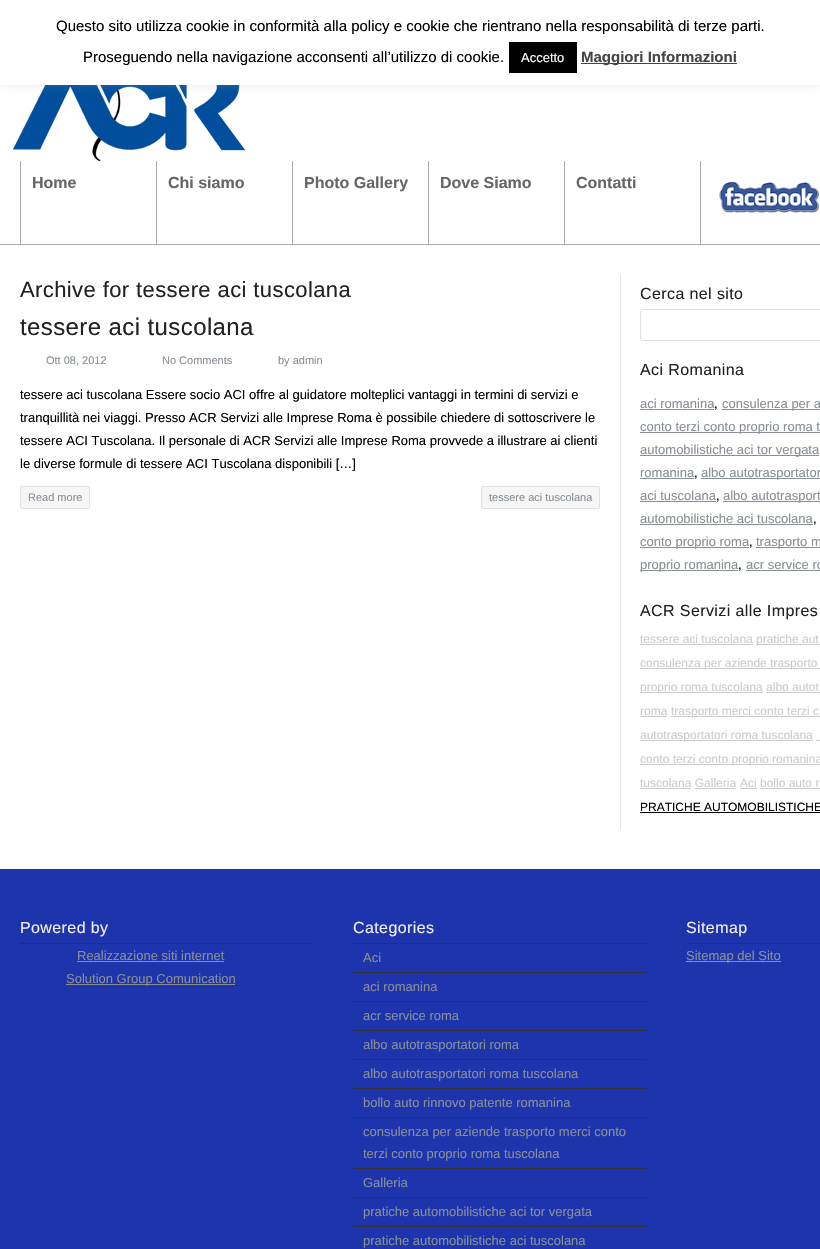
#include "include/core/SkBlurTypes.h"
#include "include/core/SkCanvas.h"
#include "include/core/SkData.h"
#include "include/core/SkFont.h"
#include "include/core/SkFontMgr.h"
#include "include/core/SkImage.h"
#include "include/core/SkMaskFilter.h"
#include "include/core/SkPaint.h"
#include "include/core/SkPathBuilder.h"
#include "include/core/SkTextBlob.h"
#include "include/effects/SkDashPathEffect.h"
#include "include/effects/SkGradientShader.h"
#include "include/utils/SkParsePath.h"

extern sk_sp<SkFontMgr> fontMgr;

static SkFont font(const char* family, int weight, float size, bool italic = false) {
    SkFontStyle style(weight, SkFontStyle::kNormal_Width,
        italic ? SkFontStyle::kItalic_Slant : SkFontStyle::kUpright_Slant);
    SkFont result(fontMgr->matchFamilyStyle(family, style), size);
    result.setSubpixel(true);
    return result;
}

static void drawLabel(SkCanvas* canvas, const char* s, float x, float y, const SkFont& font, SkColor color) {
    SkPaint ink(SkColor4f::FromColor(color));
    ink.setAntiAlias(true);
    canvas->drawString(s, x, y, font, ink);
}

static void drawTracked(SkCanvas* canvas, const char* s, float x, float y, const SkFont& font, const SkPaint& ink, float letter, float word) {
    std::vector<SkGlyphID> glyphs(font.countText(s, strlen(s), SkTextEncoding::kUTF8));
    std::vector<float> xs(glyphs.size());
    font.textToGlyphs(s, strlen(s), SkTextEncoding::kUTF8, glyphs);
    font.getXPos(glyphs, xs, x);
    float extra = 0;
    for (size_t i = 0; i < glyphs.size(); i++) {
        xs[i] += extra;
        extra += letter + word * (glyphs[i] == font.unicharToGlyph(' '));
    }
    canvas->drawTextBlob(SkTextBlob::MakeFromPosHGlyphs(glyphs, xs, y, font), 0, 0, ink);
}

static void fillRect(SkCanvas* canvas, float x, float y, float w, float h, SkColor color) {
    SkPaint ink(SkColor4f::FromColor(color));
    ink.setAntiAlias(true);
    canvas->drawRect(SkRect::MakeXYWH(x, y, w, h), ink);
}

static void drawPhoto(SkCanvas* canvas, const char* path, float x, float y, float w, float h) {
    auto image = SkImages::DeferredFromEncodedData(SkData::MakeFromFileName(path));
    canvas->drawImageRect(image, SkRect::MakeXYWH(x, y, w, h), SkSamplingOptions());
}

void draw(SkCanvas* canvas) {
    SkPaint paint;
    paint.setAntiAlias(true);
    canvas->clear(0xFFFFFFFF);
    drawPhoto(canvas, "assets/img1.png", 13, 85, 232, 76);
    paint.setColor(0x4DACABAB);
    paint.setMaskFilter(SkMaskFilter::MakeBlur(kNormal_SkBlurStyle, 5));
    canvas->drawRect(SkRect::MakeXYWH(0, -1, 820, 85), paint);
    paint.setMaskFilter(nullptr);
    fillRect(canvas, 0, 0, 820, 85, 0xFFFFFFFF);
    SkFont font1 = font("Liberation Sans", 400, 15);
    drawLabel(canvas, "Questo sito utilizza cookie in conformità alla policy e cookie che rientrano nella responsabilità di terze parti.", 56, 31, font1, 0xFF000000);
    drawLabel(canvas, "Proseguendo nella navigazione acconsenti all’utilizzo di cookie.", 83, 62, font1, 0xFF000000);
    fillRect(canvas, 509, 42, 68, 31, 0xFF000000);
    SkFont font2 = font("Liberation Sans", 400, 13);
    drawLabel(canvas, "Accetto", 521, 62, font2, 0xFFFFFFFF);
    fillRect(canvas, 581, 63, 156, 1, 0xFF444444);
    SkFont font3 = font("Liberation Sans", 700, 15);
    drawLabel(canvas, "Maggiori Informazioni", 581, 62, font3, 0xFF444444);
    fillRect(canvas, 0, 244, 820, 1, 0xFFAAAAAA);
    fillRect(canvas, 20, 161, 1, 83, 0xFFAAAAAA);
    fillRect(canvas, 156, 161, 1, 83, 0xFFAAAAAA);
    SkFont font4 = font("Liberation Sans", 700, 16);
    drawLabel(canvas, "Home", 32, 188, font4, 0xFF666666);
    fillRect(canvas, 292, 161, 1, 83, 0xFFAAAAAA);
    drawLabel(canvas, "Chi siamo", 168, 188, font4, 0xFF666666);
    fillRect(canvas, 428, 161, 1, 83, 0xFFAAAAAA);
    drawLabel(canvas, "Photo Gallery", 304, 188, font4, 0xFF666666);
    fillRect(canvas, 564, 161, 1, 83, 0xFFAAAAAA);
    drawLabel(canvas, "Dove Siamo", 440, 188, font4, 0xFF666666);
    fillRect(canvas, 700, 161, 1, 83, 0xFFAAAAAA);
    drawLabel(canvas, "Contatti", 576, 188, font4, 0xFF666666);
    drawPhoto(canvas, "assets/img2.png", 719, 181, 100, 32);
    SkFont font5 = font("Liberation Sans", 400, 22);
    paint.setColor(0xFF222222);
    drawTracked(canvas, "Archive for tessere aci tuscolana", 20, 297, font5, paint, 0.4f, 0);
    SkFont font6 = font("Liberation Sans", 400, 24);
    drawTracked(canvas, "tessere aci tuscolana", 20, 335, font6, paint, 0.4f, 0);
    SkFont font7 = font("Liberation Sans", 400, 11);
    drawLabel(canvas, "Ott 08, 2012", 46, 364, font7, 0xFF888F96);
    drawLabel(canvas, "No Comments", 162, 364, font7, 0xFF888F96);
    drawLabel(canvas, "by admin", 278, 364, font7, 0xFF888F96);
    drawLabel(canvas, "tessere aci tuscolana Essere socio ACI offre al guidatore molteplici vantaggi in termini di servizi e", 20, 399, font2, 0xFF000000);
    drawLabel(canvas, "tranquillità nei viaggi. Presso ACR Servizi alle Imprese Roma è possibile chiedere di sottoscrivere le", 20, 422, font2, 0xFF000000);
    drawLabel(canvas, "tessere ACI Tuscolana. Il personale di ACR Servizi alle Imprese Roma provvede a illustrare ai clienti", 20, 445, font2, 0xFF000000);
    drawLabel(canvas, "le diverse formule di tessere ACI Tuscolana disponibili […]", 20, 468, font2, 0xFF000000);
    paint.setColor(0xFFF6F6F6);
    canvas->drawRoundRect(SkRect::MakeXYWH(20.5f, 486.5f, 69, 22), 1.5f, 1.5f, paint);
    paint.setStroke(true);
    paint.setStrokeWidth(1);
    paint.setColor(0xFFE1E1E1);
    canvas->drawRoundRect(SkRect::MakeXYWH(20.5f, 486.5f, 69, 22), 1.5f, 1.5f, paint);
    drawLabel(canvas, "Read more", 28, 501, font7, 0xFF888F96);
    paint.setStroke(false);
    paint.setColor(0xFFF6F6F6);
    canvas->drawRoundRect(SkRect::MakeXYWH(481.5f, 486.5f, 118, 22), 1.5f, 1.5f, paint);
    paint.setStroke(true);
    paint.setColor(0xFFE1E1E1);
    canvas->drawRoundRect(SkRect::MakeXYWH(481.5f, 486.5f, 118, 22), 1.5f, 1.5f, paint);
    drawLabel(canvas, "tessere aci tuscolana", 489, 501, font7, 0xFF888F96);
    fillRect(canvas, 620, 275, 1, 554, 0xFFE1E1E1);
    SkFont font8 = font("Liberation Sans", 400, 16);
    paint.setStroke(false);
    paint.setColor(0xFF222222);
    drawTracked(canvas, "Cerca nel sito", 640, 299, font8, paint, 0.4f, 0);
    paint.setStroke(true);
    paint.setColor(0xFFE1E1E1);
    canvas->drawRoundRect(SkRect::MakeXYWH(640.5f, 309.5f, 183, 31), 2.5f, 2.5f, paint);
    paint.setStroke(false);
    paint.setColor(0xFF222222);
    drawTracked(canvas, "Aci Romanina", 640, 375, font8, paint, 0.4f, 0);
    drawLabel(canvas, "aci romanina", 640, 408, font2, 0xFF888F96);
    fillRect(canvas, 640, 409, 74, 1, 0xFF888F96);
    drawLabel(canvas, ",", 714, 408, font2, 0xFF000000);
    fillRect(canvas, 722, 409, 98, 1, 0xFF888F96);
    drawLabel(canvas, "consulenza per a", 722, 408, font2, 0xFF888F96);
    fillRect(canvas, 640, 432, 180, 1, 0xFF888F96);
    drawLabel(canvas, "conto terzi conto proprio roma t", 640, 431, font2, 0xFF888F96);
    fillRect(canvas, 640, 455, 179, 1, 0xFF888F96);
    drawLabel(canvas, "automobilistiche aci tor vergata", 640, 454, font2, 0xFF888F96);
    drawLabel(canvas, "romanina", 640, 477, font2, 0xFF888F96);
    fillRect(canvas, 640, 478, 54, 1, 0xFF888F96);
    drawLabel(canvas, ",", 694, 477, font2, 0xFF000000);
    fillRect(canvas, 701, 478, 119, 1, 0xFF888F96);
    drawLabel(canvas, "albo autotrasportator", 701, 477, font2, 0xFF888F96);
    drawLabel(canvas, "aci tuscolana", 640, 500, font2, 0xFF888F96);
    fillRect(canvas, 640, 501, 76, 1, 0xFF888F96);
    drawLabel(canvas, ",", 716, 500, font2, 0xFF000000);
    fillRect(canvas, 723, 501, 97, 1, 0xFF888F96);
    drawLabel(canvas, "albo autotrasport", 723, 500, font2, 0xFF888F96);
    drawLabel(canvas, "automobilistiche aci tuscolana", 640, 523, font2, 0xFF888F96);
    fillRect(canvas, 640, 524, 173, 1, 0xFF888F96);
    drawLabel(canvas, ",", 813, 523, font2, 0xFF000000);
    fillRect(canvas, 640, 547, 109, 1, 0xFF888F96);
    drawLabel(canvas, "conto proprio roma", 640, 546, font2, 0xFF888F96);
    drawLabel(canvas, ",", 749, 546, font2, 0xFF000000);
    fillRect(canvas, 756, 547, 64, 1, 0xFF888F96);
    drawLabel(canvas, "trasporto m", 756, 546, font2, 0xFF888F96);
    fillRect(canvas, 640, 570, 98, 1, 0xFF888F96);
    drawLabel(canvas, "proprio romanina", 640, 569, font2, 0xFF888F96);
    drawLabel(canvas, ",", 738, 569, font2, 0xFF000000);
    drawLabel(canvas, "acr service ro", 746, 569, font2, 0xFF888F96);
    fillRect(canvas, 746, 570, 74, 1, 0xFF888F96);
    drawTracked(canvas, "ACR Servizi alle Impres", 640, 616, font8, paint, 0.4f, 0);
    SkFont font9 = font("Liberation Sans", 400, 12);
    drawLabel(canvas, "tessere aci tuscolana", 640, 643, font9, 0xFFCCCCCC);
    fillRect(canvas, 640, 644, 113, 1, 0xFFCCCCCC);
    fillRect(canvas, 756, 644, 64, 1, 0xFFCCCCCC);
    drawLabel(canvas, "pratiche aut", 756, 643, font9, 0xFFCCCCCC);
    fillRect(canvas, 640, 668, 180, 1, 0xFFCCCCCC);
    drawLabel(canvas, "consulenza per aziende trasporto", 640, 667, font9, 0xFFCCCCCC);
    fillRect(canvas, 640, 692, 123, 1, 0xFFCCCCCC);
    drawLabel(canvas, "proprio roma tuscolana albo autot", 640, 691, font9, 0xFFCCCCCC);
    fillRect(canvas, 766, 692, 54, 1, 0xFFCCCCCC);
    drawLabel(canvas, "roma", 640, 715, font9, 0xFFCCCCCC);
    fillRect(canvas, 640, 716, 27, 1, 0xFFCCCCCC);
    fillRect(canvas, 671, 716, 149, 1, 0xFFCCCCCC);
    drawLabel(canvas, "trasporto merci conto terzi c", 671, 715, font9, 0xFFCCCCCC);
    fillRect(canvas, 640, 740, 173, 1, 0xFFCCCCCC);
    drawLabel(canvas, "autotrasportatori roma tuscolana", 640, 739, font9, 0xFFCCCCCC);
    fillRect(canvas, 816, 740, 4, 1, 0xFFCCCCCC);
    fillRect(canvas, 640, 764, 180, 1, 0xFFCCCCCC);
    drawLabel(canvas, "conto terzi conto proprio romanina", 640, 763, font9, 0xFFCCCCCC);
    drawLabel(canvas, "tuscolana Galleria", 640, 787, font9, 0xFFCCCCCC);
    fillRect(canvas, 640, 788, 51, 1, 0xFFCCCCCC);
    drawLabel(canvas, "Aci bollo auto r", 740, 787, font9, 0xFFCCCCCC);
    fillRect(canvas, 740, 788, 17, 1, 0xFFCCCCCC);
    fillRect(canvas, 695, 788, 41, 1, 0xFFCCCCCC);
    fillRect(canvas, 760, 788, 60, 1, 0xFFCCCCCC);
    drawLabel(canvas, "PRATICHE AUTOMOBILISTICHE", 640, 811, font9, 0xFF000000);
    fillRect(canvas, 640, 812, 180, 1, 0xFF000000);
    fillRect(canvas, 0, 869, 820, 380, 0xFF1D34AD);
    fillRect(canvas, 20, 943, 293, 1, 0xFF333333);
    paint.setColor(0xFFEEEEEE);
    drawTracked(canvas, "Powered by", 20, 933, font8, paint, 0.4f, 0);
    drawLabel(canvas, "Realizzazione siti internet", 77, 960, font2, 0xFF888F96);
    fillRect(canvas, 77, 961, 147, 1, 0xFF888F96);
    fillRect(canvas, 66, 984, 169, 1, 0xFF888F96);
    drawLabel(canvas, "Solution Group Comunication", 66, 983, font2, 0xFF888F96);
    fillRect(canvas, 353, 943, 293, 1, 0xFF333333);
    drawTracked(canvas, "Categories", 353, 933, font8, paint, 0.4f, 0);
    fillRect(canvas, 353, 972, 293, 1, 0xFF333333);
    drawLabel(canvas, "Aci", 363, 962, font2, 0xFF888F96);
    fillRect(canvas, 353, 1001, 293, 1, 0xFF333333);
    drawLabel(canvas, "aci romanina", 363, 991, font2, 0xFF888F96);
    fillRect(canvas, 353, 1030, 293, 1, 0xFF333333);
    drawLabel(canvas, "acr service roma", 363, 1020, font2, 0xFF888F96);
    fillRect(canvas, 353, 1059, 293, 1, 0xFF333333);
    drawLabel(canvas, "albo autotrasportatori roma", 363, 1049, font2, 0xFF888F96);
    fillRect(canvas, 353, 1088, 293, 1, 0xFF333333);
    drawLabel(canvas, "albo autotrasportatori roma tuscolana", 363, 1078, font2, 0xFF888F96);
    fillRect(canvas, 353, 1117, 293, 1, 0xFF333333);
    drawLabel(canvas, "bollo auto rinnovo patente romanina", 363, 1107, font2, 0xFF888F96);
    fillRect(canvas, 353, 1168, 293, 1, 0xFF333333);
    drawLabel(canvas, "consulenza per aziende trasporto merci conto", 363, 1136, font2, 0xFF888F96);
    drawLabel(canvas, "terzi conto proprio roma tuscolana", 363, 1158, font2, 0xFF888F96);
    fillRect(canvas, 353, 1197, 293, 1, 0xFF333333);
    drawLabel(canvas, "Galleria", 363, 1187, font2, 0xFF888F96);
    fillRect(canvas, 353, 1226, 293, 1, 0xFF333333);
    drawLabel(canvas, "pratiche automobilistiche aci tor vergata", 363, 1216, font2, 0xFF888F96);
    drawLabel(canvas, "pratiche automobilistiche aci tuscolana", 363, 1245, font2, 0xFF888F96);
    fillRect(canvas, 686, 943, 134, 1, 0xFF333333);
    drawTracked(canvas, "Sitemap", 686, 933, font8, paint, 0.4f, 0);
    fillRect(canvas, 686, 961, 95, 1, 0xFF888F96);
    drawLabel(canvas, "Sitemap del Sito", 686, 960, font2, 0xFF888F96);
}
